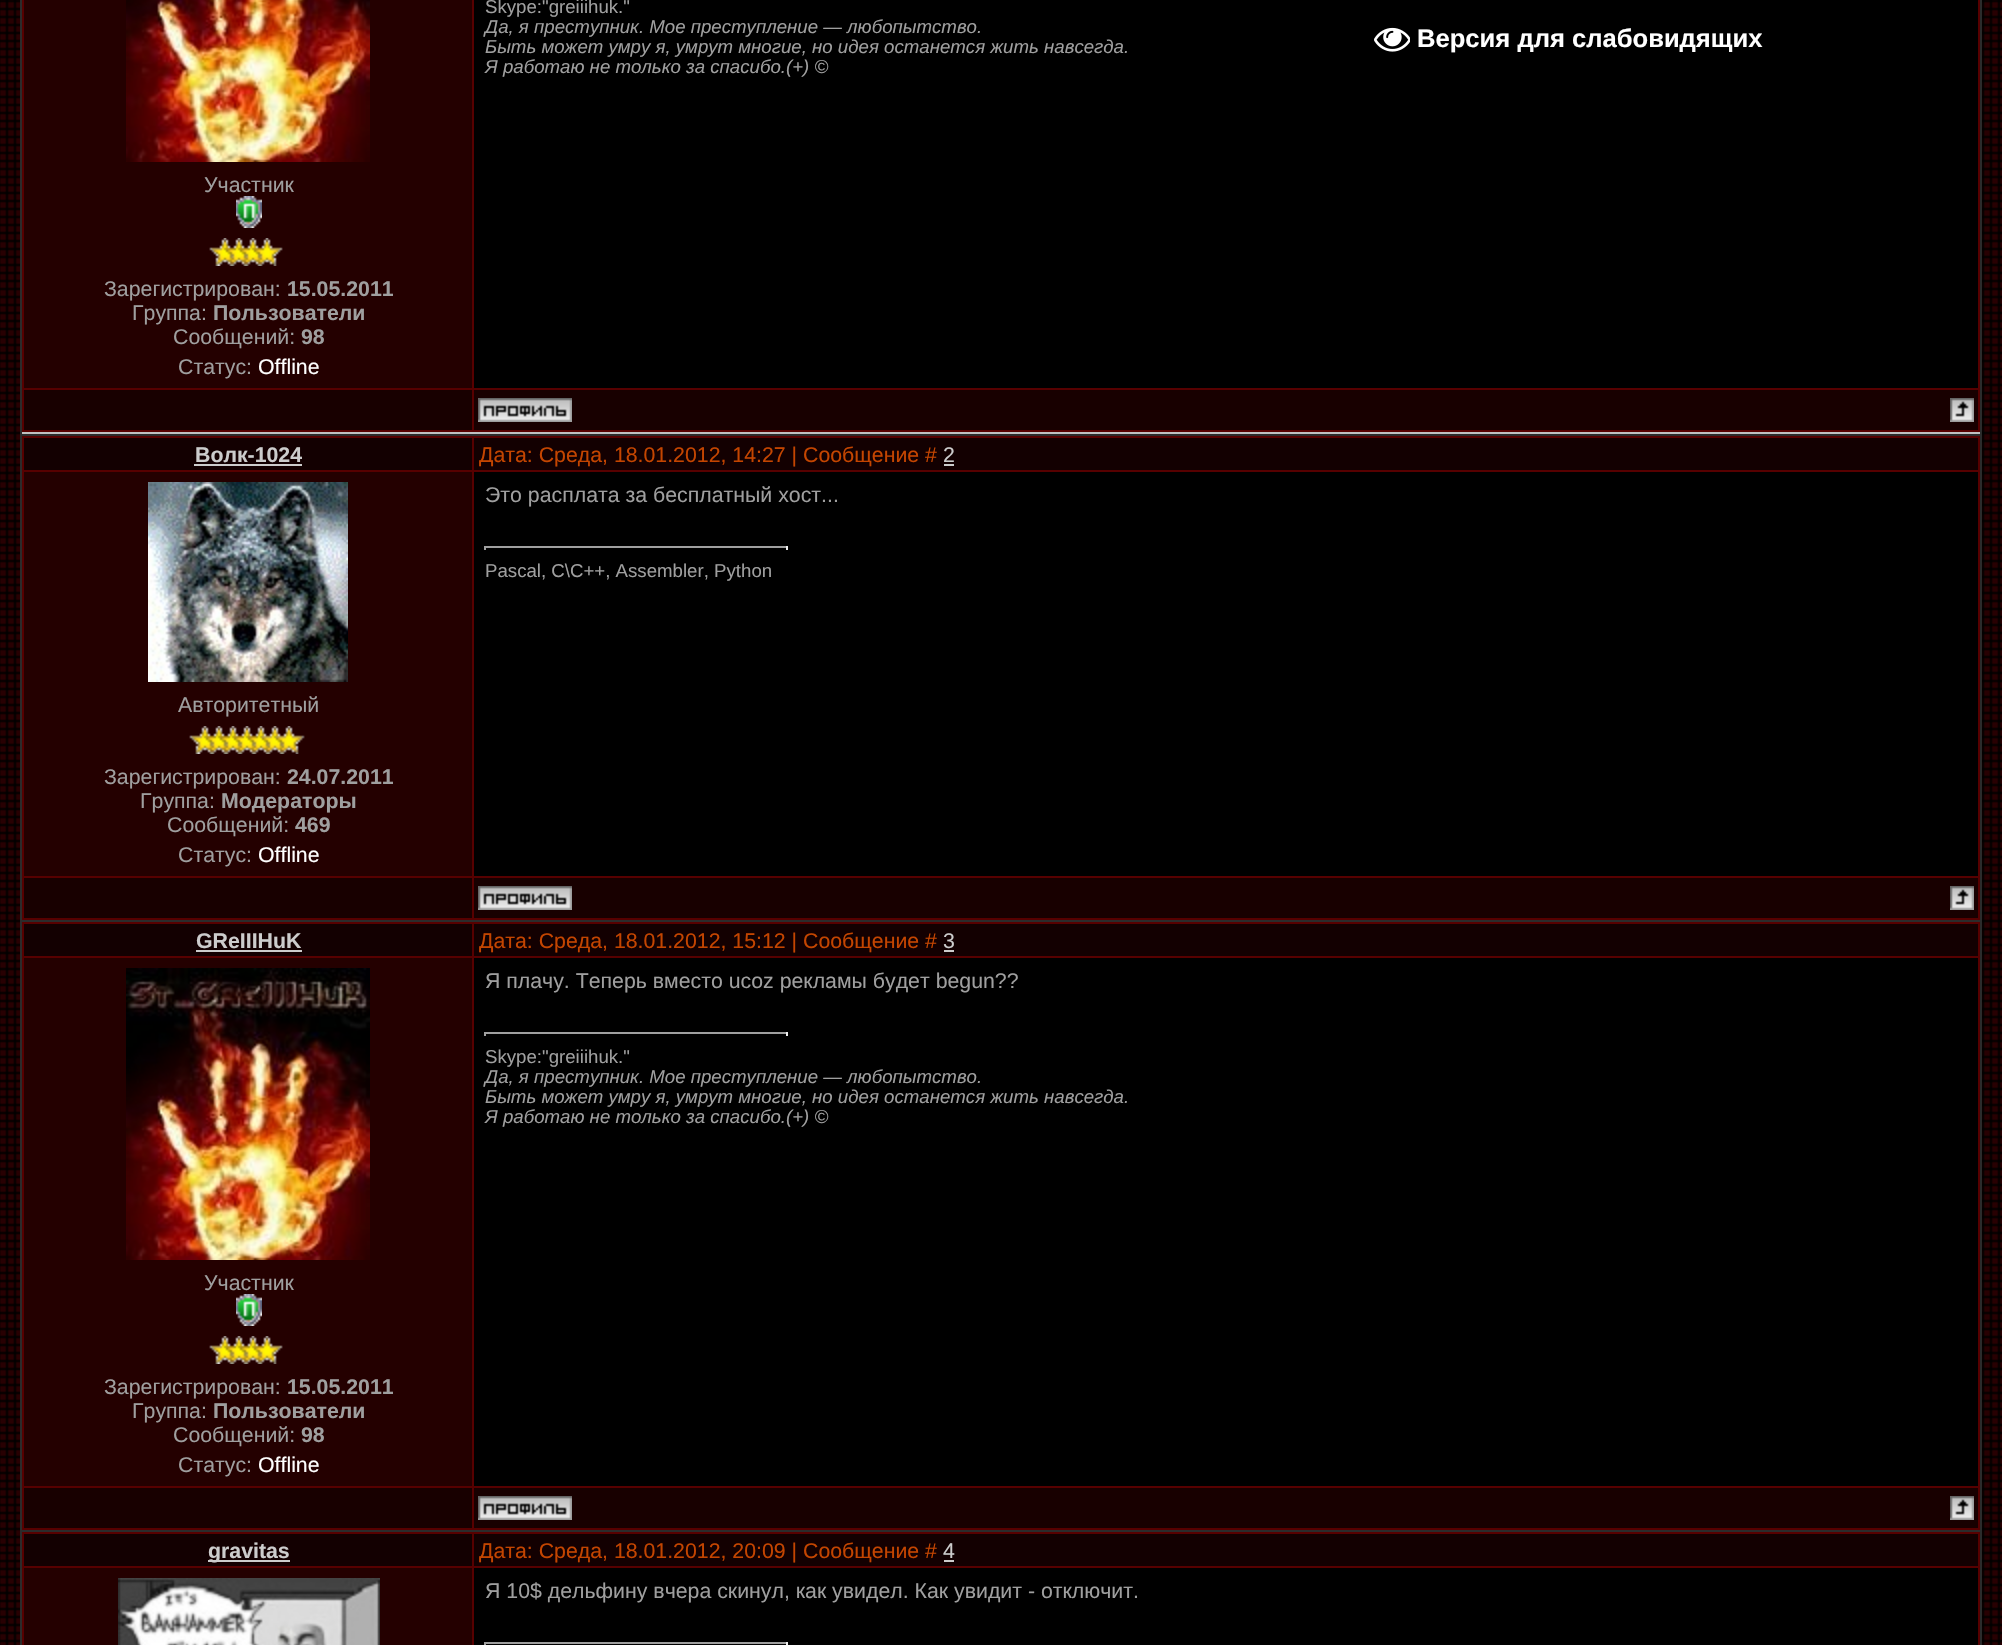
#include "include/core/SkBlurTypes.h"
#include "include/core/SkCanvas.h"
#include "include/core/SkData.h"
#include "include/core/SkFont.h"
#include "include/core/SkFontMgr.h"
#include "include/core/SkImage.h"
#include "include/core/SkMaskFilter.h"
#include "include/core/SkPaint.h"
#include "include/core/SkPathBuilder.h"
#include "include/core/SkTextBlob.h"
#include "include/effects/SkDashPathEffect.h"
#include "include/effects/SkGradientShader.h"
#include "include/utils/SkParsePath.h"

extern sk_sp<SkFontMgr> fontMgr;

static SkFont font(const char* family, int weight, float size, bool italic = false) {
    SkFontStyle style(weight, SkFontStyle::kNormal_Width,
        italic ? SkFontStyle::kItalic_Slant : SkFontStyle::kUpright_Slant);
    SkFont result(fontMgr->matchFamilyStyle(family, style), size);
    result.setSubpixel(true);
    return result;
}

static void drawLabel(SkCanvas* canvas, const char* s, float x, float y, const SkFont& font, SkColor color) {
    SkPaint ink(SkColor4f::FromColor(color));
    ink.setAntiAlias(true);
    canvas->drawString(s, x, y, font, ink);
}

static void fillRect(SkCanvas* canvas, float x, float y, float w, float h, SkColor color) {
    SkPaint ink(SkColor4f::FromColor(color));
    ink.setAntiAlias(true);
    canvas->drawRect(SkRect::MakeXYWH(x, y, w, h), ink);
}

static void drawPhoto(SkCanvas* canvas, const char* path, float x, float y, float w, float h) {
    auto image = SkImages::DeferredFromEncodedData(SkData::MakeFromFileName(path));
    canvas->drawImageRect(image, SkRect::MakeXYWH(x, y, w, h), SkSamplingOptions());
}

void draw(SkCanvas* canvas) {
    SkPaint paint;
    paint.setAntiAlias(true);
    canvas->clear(0xFFFFFFFF);
    drawPhoto(canvas, "assets/img1.png", 0, 0, 2002, 1645);
    fillRect(canvas, 20, 0, 1962, 1645, 0xFF2B2B2B);
    fillRect(canvas, 22, 432, 1958, 2, 0xFFC0C0C0);
    fillRect(canvas, 22, 0, 1958, 432, 0xFF570000);
    fillRect(canvas, 474, 0, 1504, 388, 0xFF000000);
    SkFont font1 = font("Liberation Sans", 400, 18.65f);
    drawLabel(canvas, "Skype:\"greiiihuk.\"", 485, 13, font1, 0xFF9F9F9F);
    SkFont font2 = font("Liberation Sans", 400, 18.65f, true);
    drawLabel(canvas, "Да, я преступник. Мое преступление — любопытство.", 485, 33, font2, 0xFF9F9F9F);
    drawLabel(canvas, "Быть может умру я, умрут многие, но идея останется жить навсегда.", 485, 53, font2, 0xFF9F9F9F);
    drawLabel(canvas, "Я работаю не только за спасибо.(+) ©", 485, 73, font2, 0xFF9F9F9F);
    fillRect(canvas, 24, 0, 448, 388, 0xFF240000);
    drawPhoto(canvas, "assets/img2.png", 126, 0, 244, 162);
    SkFont font3 = font("Liberation Sans", 400, 21.3f);
    drawLabel(canvas, "Участник", 204, 192, font3, 0xFF9F9F9F);
    drawPhoto(canvas, "assets/img3.png", 236, 196, 26, 32);
    drawPhoto(canvas, "assets/img4.png", 209, 238, 74, 28);
    drawLabel(canvas, "Зарегистрирован:", 104, 296, font3, 0xFF9F9F9F);
    SkFont font4 = font("Liberation Sans", 700, 21.3f);
    drawLabel(canvas, "15.05.2011", 287, 296, font4, 0xFF9F9F9F);
    drawLabel(canvas, "Группа:", 132, 320, font3, 0xFF9F9F9F);
    drawLabel(canvas, "Пользователи", 213, 320, font4, 0xFF9F9F9F);
    drawLabel(canvas, "Сообщений:", 173, 344, font3, 0xFF9F9F9F);
    drawLabel(canvas, "98", 301, 344, font4, 0xFF9F9F9F);
    drawLabel(canvas, "Статус:", 178, 374, font3, 0xFF9F9F9F);
    drawLabel(canvas, "Offline", 258, 374, font3, 0xFFFFFFFF);
    fillRect(canvas, 24, 390, 448, 40, 0xFF180000);
    fillRect(canvas, 474, 390, 1504, 40, 0xFF180000);
    drawPhoto(canvas, "assets/img5.png", 478, 398, 94, 24);
    drawPhoto(canvas, "assets/img6.png", 1950, 398, 24, 24);
    fillRect(canvas, 22, 436, 1958, 484, 0xFF570000);
    fillRect(canvas, 24, 438, 448, 32, 0xFF130001);
    drawLabel(canvas, "Волк-1024", 195, 462, font4, 0xFFCCCCCC);
    fillRect(canvas, 194, 464, 108, 2, 0xFFCCCCCC);
    fillRect(canvas, 474, 438, 1504, 32, 0xFF130001);
    drawLabel(canvas, "Дата: Среда, 18.01.2012, 14:27 | Сообщение #", 479, 462, font3, 0xFFC44500);
    drawLabel(canvas, "2", 943, 462, font3, 0xFFCCCCCC);
    fillRect(canvas, 944, 464, 10, 2, 0xFFCCCCCC);
    fillRect(canvas, 474, 472, 1504, 404, 0xFF000000);
    drawLabel(canvas, "Это расплата за бесплатный хост...", 485, 502, font3, 0xFF9F9F9F);
    fillRect(canvas, 484, 546, 304, 2, 0xFF9F9F9F);
    fillRect(canvas, 786, 546, 2, 4, 0xFFEEEEEE);
    fillRect(canvas, 484, 546, 2, 4, 0xFF9F9F9F);
    drawLabel(canvas, "Pascal, C\\C++, Assembler, Python", 485, 577, font1, 0xFF9F9F9F);
    fillRect(canvas, 24, 472, 448, 404, 0xFF240000);
    drawPhoto(canvas, "assets/img7.png", 148, 482, 200, 200);
    drawLabel(canvas, "Авторитетный", 178, 712, font3, 0xFF9F9F9F);
    drawPhoto(canvas, "assets/img8.png", 189, 726, 116, 28);
    drawLabel(canvas, "Зарегистрирован:", 104, 784, font3, 0xFF9F9F9F);
    drawLabel(canvas, "24.07.2011", 287, 784, font4, 0xFF9F9F9F);
    drawLabel(canvas, "Группа:", 140, 808, font3, 0xFF9F9F9F);
    drawLabel(canvas, "Модераторы", 221, 808, font4, 0xFF9F9F9F);
    drawLabel(canvas, "Сообщений:", 167, 832, font3, 0xFF9F9F9F);
    drawLabel(canvas, "469", 295, 832, font4, 0xFF9F9F9F);
    drawLabel(canvas, "Статус:", 178, 862, font3, 0xFF9F9F9F);
    drawLabel(canvas, "Offline", 258, 862, font3, 0xFFFFFFFF);
    fillRect(canvas, 24, 878, 448, 40, 0xFF180000);
    fillRect(canvas, 474, 878, 1504, 40, 0xFF180000);
    drawPhoto(canvas, "assets/img5.png", 478, 886, 94, 24);
    drawPhoto(canvas, "assets/img6.png", 1950, 886, 24, 24);
    fillRect(canvas, 22, 922, 1958, 608, 0xFF570000);
    fillRect(canvas, 24, 924, 448, 32, 0xFF130001);
    drawLabel(canvas, "GReIIIHuK", 196, 948, font4, 0xFFCCCCCC);
    fillRect(canvas, 196, 950, 106, 2, 0xFFCCCCCC);
    fillRect(canvas, 474, 924, 1504, 32, 0xFF130001);
    drawLabel(canvas, "Дата: Среда, 18.01.2012, 15:12 | Сообщение #", 479, 948, font3, 0xFFC44500);
    drawLabel(canvas, "3", 943, 948, font3, 0xFFCCCCCC);
    fillRect(canvas, 944, 950, 10, 2, 0xFFCCCCCC);
    fillRect(canvas, 474, 958, 1504, 528, 0xFF000000);
    drawLabel(canvas, "Я плачу. Теперь вместо ucoz рекламы будет begun?\077", 485, 988, font3, 0xFF9F9F9F);
    fillRect(canvas, 484, 1032, 304, 2, 0xFF9F9F9F);
    fillRect(canvas, 786, 1032, 2, 4, 0xFFEEEEEE);
    fillRect(canvas, 484, 1032, 2, 4, 0xFF9F9F9F);
    drawLabel(canvas, "Skype:\"greiiihuk.\"", 485, 1063, font1, 0xFF9F9F9F);
    drawLabel(canvas, "Да, я преступник. Мое преступление — любопытство.", 485, 1083, font2, 0xFF9F9F9F);
    drawLabel(canvas, "Быть может умру я, умрут многие, но идея останется жить навсегда.", 485, 1103, font2, 0xFF9F9F9F);
    drawLabel(canvas, "Я работаю не только за спасибо.(+) ©", 485, 1123, font2, 0xFF9F9F9F);
    fillRect(canvas, 24, 958, 448, 528, 0xFF240000);
    drawPhoto(canvas, "assets/img9.png", 126, 968, 244, 292);
    drawLabel(canvas, "Участник", 204, 1290, font3, 0xFF9F9F9F);
    drawPhoto(canvas, "assets/img3.png", 236, 1294, 26, 32);
    drawPhoto(canvas, "assets/img4.png", 209, 1336, 74, 28);
    drawLabel(canvas, "Зарегистрирован:", 104, 1394, font3, 0xFF9F9F9F);
    drawLabel(canvas, "15.05.2011", 287, 1394, font4, 0xFF9F9F9F);
    drawLabel(canvas, "Группа:", 132, 1418, font3, 0xFF9F9F9F);
    drawLabel(canvas, "Пользователи", 213, 1418, font4, 0xFF9F9F9F);
    drawLabel(canvas, "Сообщений:", 173, 1442, font3, 0xFF9F9F9F);
    drawLabel(canvas, "98", 301, 1442, font4, 0xFF9F9F9F);
    drawLabel(canvas, "Статус:", 178, 1472, font3, 0xFF9F9F9F);
    drawLabel(canvas, "Offline", 258, 1472, font3, 0xFFFFFFFF);
    fillRect(canvas, 24, 1488, 448, 40, 0xFF180000);
    fillRect(canvas, 474, 1488, 1504, 40, 0xFF180000);
    drawPhoto(canvas, "assets/img5.png", 478, 1496, 94, 24);
    drawPhoto(canvas, "assets/img6.png", 1950, 1496, 24, 24);
    fillRect(canvas, 22, 1532, 1958, 113, 0xFF570000);
    fillRect(canvas, 24, 1534, 448, 32, 0xFF130001);
    fillRect(canvas, 208, 1560, 82, 2, 0xFFCCCCCC);
    drawLabel(canvas, "gravitas", 208, 1558, font4, 0xFFCCCCCC);
    fillRect(canvas, 474, 1534, 1504, 32, 0xFF130001);
    drawLabel(canvas, "Дата: Среда, 18.01.2012, 20:09 | Сообщение #", 479, 1558, font3, 0xFFC44500);
    drawLabel(canvas, "4", 943, 1558, font3, 0xFFCCCCCC);
    fillRect(canvas, 944, 1560, 10, 2, 0xFFCCCCCC);
    fillRect(canvas, 24, 1568, 448, 77, 0xFF240000);
    drawPhoto(canvas, "assets/img10.png", 118, 1578, 262, 67);
    fillRect(canvas, 474, 1568, 1504, 77, 0xFF000000);
    drawLabel(canvas, "Я 10$ дельфину вчера скинул, как увидел. Как увидит - отключит.", 485, 1598, font3, 0xFF9F9F9F);
    fillRect(canvas, 484, 1642, 304, 2, 0xFF9F9F9F);
    fillRect(canvas, 786, 1642, 2, 3, 0xFFEEEEEE);
    fillRect(canvas, 484, 1642, 2, 3, 0xFF9F9F9F);
    drawPhoto(canvas, "assets/img11.png", 1374, 27, 36, 25);
    SkFont font5 = font("Liberation Sans", 700, 25.6f);
    drawLabel(canvas, "Версия для слабовидящих", 1417, 47, font5, 0xFFFFFFFF);
}
